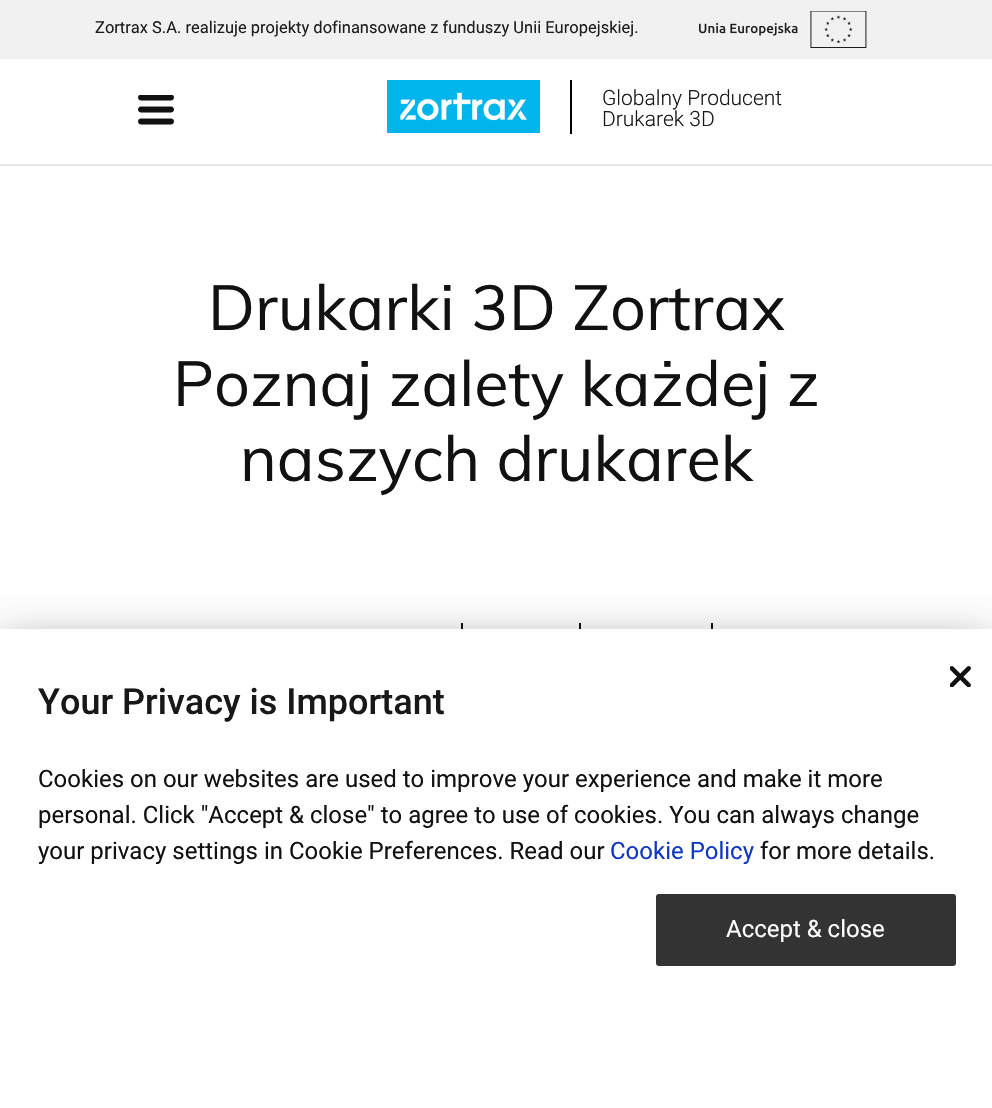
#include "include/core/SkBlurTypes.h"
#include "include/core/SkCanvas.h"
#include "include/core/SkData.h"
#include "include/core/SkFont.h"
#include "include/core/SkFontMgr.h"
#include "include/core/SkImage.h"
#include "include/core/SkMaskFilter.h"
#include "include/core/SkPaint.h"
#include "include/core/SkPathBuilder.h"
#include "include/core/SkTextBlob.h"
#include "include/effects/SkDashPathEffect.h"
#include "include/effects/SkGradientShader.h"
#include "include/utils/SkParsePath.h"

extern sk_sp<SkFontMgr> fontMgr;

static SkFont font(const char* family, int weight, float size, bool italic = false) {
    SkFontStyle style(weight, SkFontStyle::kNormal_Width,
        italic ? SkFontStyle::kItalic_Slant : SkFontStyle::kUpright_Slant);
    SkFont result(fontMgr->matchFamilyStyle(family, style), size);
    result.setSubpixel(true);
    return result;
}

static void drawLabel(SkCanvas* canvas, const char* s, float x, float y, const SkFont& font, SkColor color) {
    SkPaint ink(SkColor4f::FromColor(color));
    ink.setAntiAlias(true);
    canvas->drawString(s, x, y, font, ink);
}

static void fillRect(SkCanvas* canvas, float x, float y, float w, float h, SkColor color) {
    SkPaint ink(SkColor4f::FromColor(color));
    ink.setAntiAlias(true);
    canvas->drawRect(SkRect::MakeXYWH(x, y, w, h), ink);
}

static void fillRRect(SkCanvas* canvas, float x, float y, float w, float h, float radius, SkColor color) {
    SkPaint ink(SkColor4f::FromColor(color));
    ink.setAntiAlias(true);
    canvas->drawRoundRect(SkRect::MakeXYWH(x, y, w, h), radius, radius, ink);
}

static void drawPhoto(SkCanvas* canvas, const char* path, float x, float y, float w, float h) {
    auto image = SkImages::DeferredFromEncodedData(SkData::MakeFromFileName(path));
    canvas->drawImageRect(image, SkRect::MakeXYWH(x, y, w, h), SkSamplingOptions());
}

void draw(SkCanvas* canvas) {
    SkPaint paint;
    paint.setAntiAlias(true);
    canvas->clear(0xFFFFFFFF);
    fillRect(canvas, 0, 0, 992, 59, 0xFFF1F1F1);
    SkFont font1 = font("Roboto", 400, 16.5f);
    drawLabel(canvas, "Zortrax S.A. realizuje projekty dofinansowane z funduszy Unii Europejskiej.", 95, 33, font1, 0xFF1E1E1E);
    drawPhoto(canvas, "assets/img1.png", 699, 11, 168, 37);
    drawPhoto(canvas, "assets/img2.png", 138, 95, 36, 30);
    drawPhoto(canvas, "assets/img3.png", 387, 80, 153, 53);
    fillRect(canvas, 570, 80, 2, 54, 0xFF000000);
    SkFont font2 = font("Roboto", 300, 21);
    drawLabel(canvas, "Globalny Producent", 602, 105, font2, 0xFF181818);
    drawLabel(canvas, "Drukarek 3D", 602, 126, font2, 0xFF181818);
    fillRect(canvas, 0, 164, 992, 2, 0xFFE6E6E6);
    SkFont font3 = font("Muli", 400, 63);
    drawLabel(canvas, "Drukarki 3D Zortrax", 208, 330, font3, 0xFF111111);
    drawLabel(canvas, "Poznaj zalety każdej z", 173, 406, font3, 0xFF111111);
    drawLabel(canvas, "naszych drukarek", 240, 481, font3, 0xFF111111);
    fillRect(canvas, 461, 623, 2, 6, 0xFF111111);
    fillRect(canvas, 579, 623, 2, 6, 0xFF111111);
    fillRect(canvas, 711, 623, 2, 6, 0xFF111111);
    paint.setColor(0x4D000000);
    paint.setMaskFilter(SkMaskFilter::MakeBlur(kNormal_SkBlurStyle, 21));
    canvas->drawRect(SkRect::MakeXYWH(0, 659, 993, 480), paint);
    paint.setMaskFilter(nullptr);
    paint.setColor(0x38000000);
    paint.setMaskFilter(SkMaskFilter::MakeBlur(kNormal_SkBlurStyle, 19.5f));
    canvas->drawRect(SkRect::MakeXYWH(0, 636, 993, 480), paint);
    paint.setMaskFilter(nullptr);
    fillRect(canvas, 0, 629, 992, 479, 0xFFFFFFFF);
    SkFont font4 = font("Roboto", 500, 36);
    drawLabel(canvas, "Your Privacy is Important", 38, 714, font4, 0xFF181818);
    SkFont font5 = font("Roboto", 400, 24);
    drawLabel(canvas, "Cookies on our websites are used to improve your experience and make it more", 38, 787, font5, 0xFF111111);
    drawLabel(canvas, "personal. Click \"Accept & close\" to agree to use of cookies. You can always change", 38, 823, font5, 0xFF111111);
    drawLabel(canvas, "your privacy settings in Cookie Preferences. Read our", 38, 859, font5, 0xFF111111);
    drawLabel(canvas, "Cookie Policy", 610, 859, font5, 0xFF0F37C3);
    drawLabel(canvas, "for more details.", 760, 859, font5, 0xFF111111);
    drawPhoto(canvas, "assets/img4.png", 950, 666, 21, 21);
    fillRRect(canvas, 656, 894, 300, 72, 3, 0xFF333333);
    drawLabel(canvas, "Accept & close", 726, 937, font5, 0xFFFFFFFF);
}
